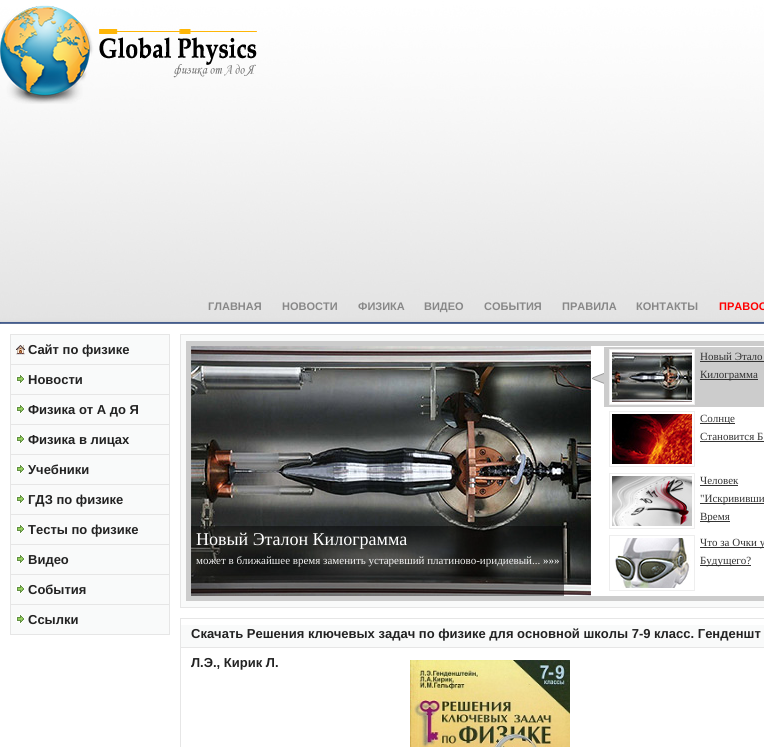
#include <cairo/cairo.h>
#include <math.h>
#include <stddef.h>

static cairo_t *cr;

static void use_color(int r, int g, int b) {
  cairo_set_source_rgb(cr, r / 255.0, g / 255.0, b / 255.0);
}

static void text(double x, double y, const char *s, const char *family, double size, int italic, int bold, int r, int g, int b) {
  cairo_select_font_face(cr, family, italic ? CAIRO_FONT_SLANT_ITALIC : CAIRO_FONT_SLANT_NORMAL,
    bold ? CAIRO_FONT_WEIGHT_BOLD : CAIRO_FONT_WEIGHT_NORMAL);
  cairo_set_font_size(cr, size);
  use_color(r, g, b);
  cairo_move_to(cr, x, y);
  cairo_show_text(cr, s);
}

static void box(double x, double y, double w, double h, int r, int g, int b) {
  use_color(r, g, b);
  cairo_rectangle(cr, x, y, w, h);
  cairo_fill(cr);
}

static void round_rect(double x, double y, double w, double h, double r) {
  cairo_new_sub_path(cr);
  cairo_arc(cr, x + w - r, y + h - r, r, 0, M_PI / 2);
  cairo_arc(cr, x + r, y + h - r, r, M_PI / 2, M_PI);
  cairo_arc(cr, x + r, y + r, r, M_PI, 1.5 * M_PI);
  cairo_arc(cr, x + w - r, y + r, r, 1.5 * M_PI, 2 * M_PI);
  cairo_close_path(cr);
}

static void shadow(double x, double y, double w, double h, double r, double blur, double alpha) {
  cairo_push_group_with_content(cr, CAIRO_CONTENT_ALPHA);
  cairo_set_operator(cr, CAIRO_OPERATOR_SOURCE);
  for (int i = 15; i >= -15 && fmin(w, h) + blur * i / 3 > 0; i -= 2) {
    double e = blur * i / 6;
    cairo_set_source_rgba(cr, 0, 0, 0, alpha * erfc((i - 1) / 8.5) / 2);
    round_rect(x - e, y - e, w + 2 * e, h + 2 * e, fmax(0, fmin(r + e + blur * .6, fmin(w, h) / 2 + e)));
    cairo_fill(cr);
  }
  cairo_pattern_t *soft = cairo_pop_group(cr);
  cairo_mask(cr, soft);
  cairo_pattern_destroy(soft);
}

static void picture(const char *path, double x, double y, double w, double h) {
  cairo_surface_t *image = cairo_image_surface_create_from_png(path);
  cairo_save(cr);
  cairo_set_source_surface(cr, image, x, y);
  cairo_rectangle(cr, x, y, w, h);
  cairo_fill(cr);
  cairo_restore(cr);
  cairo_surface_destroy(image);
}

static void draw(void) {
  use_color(255, 255, 255);
  cairo_paint(cr);
  picture("img_01.png", 0, 0, 764, 322);
  picture("img_02.png", 0, 5, 257, 99);
  box(0, 322, 764, 2, 22, 56, 124);
  use_color(187, 187, 187);
  shadow(0, 324, 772, 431, 0, 2.5, 1);
  box(0, 324, 764, 423, 255, 255, 255);
  box(10, 334, 160, 1, 230, 230, 230);
  box(11, 335, 158, 29, 249, 250, 250);
  picture("img_03.png", 16, 345, 9, 10);
  box(169, 335, 1, 300, 230, 230, 230);
  box(10, 364, 160, 1, 230, 230, 230);
  box(10, 335, 1, 30, 230, 230, 230);
  box(11, 365, 158, 29, 249, 250, 250);
  picture("img_04.png", 16, 374, 9, 10);
  box(10, 394, 160, 1, 230, 230, 230);
  box(10, 365, 1, 30, 230, 230, 230);
  box(11, 395, 158, 29, 249, 250, 250);
  picture("img_04.png", 16, 404, 9, 10);
  box(10, 424, 160, 1, 230, 230, 230);
  box(10, 395, 1, 30, 230, 230, 230);
  box(11, 425, 158, 29, 249, 250, 250);
  picture("img_04.png", 16, 434, 9, 10);
  box(10, 454, 160, 1, 230, 230, 230);
  box(10, 425, 1, 30, 230, 230, 230);
  box(11, 455, 158, 29, 249, 250, 250);
  picture("img_04.png", 16, 464, 9, 10);
  box(10, 484, 160, 1, 230, 230, 230);
  box(10, 455, 1, 30, 230, 230, 230);
  box(11, 485, 158, 29, 249, 250, 250);
  picture("img_04.png", 16, 494, 9, 10);
  box(10, 514, 160, 1, 230, 230, 230);
  box(10, 485, 1, 30, 230, 230, 230);
  box(11, 515, 158, 29, 249, 250, 250);
  picture("img_04.png", 16, 524, 9, 10);
  box(10, 544, 160, 1, 230, 230, 230);
  box(10, 515, 1, 30, 230, 230, 230);
  box(11, 545, 158, 29, 249, 250, 250);
  picture("img_04.png", 16, 554, 9, 10);
  box(10, 574, 160, 1, 230, 230, 230);
  box(10, 545, 1, 30, 230, 230, 230);
  box(11, 575, 158, 29, 249, 250, 250);
  picture("img_04.png", 16, 584, 9, 10);
  box(10, 604, 160, 1, 230, 230, 230);
  box(10, 575, 1, 30, 230, 230, 230);
  box(11, 605, 158, 29, 249, 250, 250);
  picture("img_04.png", 16, 614, 9, 10);
  box(10, 634, 160, 1, 230, 230, 230);
  box(10, 605, 1, 30, 230, 230, 230);
  use_color(249, 250, 250);
  cairo_rectangle(cr, 180.5, 334.5, 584, 273);
  cairo_fill_preserve(cr);
  use_color(230, 230, 230);
  cairo_set_line_width(cr, 1);
  cairo_stroke(cr);
  box(591, 346, 173, 250, 255, 255, 255);
  cairo_rectangle(cr, 188.5, 343.5, 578, 255);
  use_color(204, 204, 204);
  cairo_set_line_width(cr, 5);
  cairo_stroke(cr);
  picture("img_05.png", 191, 346, 400, 250);
  cairo_set_source_rgba(cr, 0, 0, 0, 0.45);
  cairo_rectangle(cr, 191, 526, 373, 70);
  cairo_fill(cr);
  picture("img_06.png", 592, 373, 12, 11);
  box(604, 347, 160, 60, 204, 204, 204);
  use_color(255, 255, 255);
  cairo_rectangle(cr, 609.5, 349.5, 85, 55);
  cairo_fill_preserve(cr);
  use_color(238, 238, 238);
  cairo_set_line_width(cr, 1);
  cairo_stroke(cr);
  picture("img_07.png", 612, 352, 80, 50);
  box(700, 361, 64, 1, 51, 51, 51);
  box(700, 379, 58, 1, 51, 51, 51);
  cairo_rectangle(cr, 609.5, 411.5, 85, 55);
  use_color(238, 238, 238);
  cairo_stroke(cr);
  picture("img_08.png", 612, 414, 80, 50);
  box(700, 423, 35, 1, 51, 51, 51);
  box(700, 441, 64, 1, 51, 51, 51);
  cairo_rectangle(cr, 609.5, 473.5, 85, 55);
  use_color(238, 238, 238);
  cairo_stroke(cr);
  picture("img_09.png", 612, 476, 80, 50);
  box(700, 485, 38, 1, 51, 51, 51);
  box(700, 503, 64, 1, 51, 51, 51);
  box(700, 521, 30, 1, 51, 51, 51);
  cairo_rectangle(cr, 609.5, 535.5, 85, 55);
  use_color(238, 238, 238);
  cairo_stroke(cr);
  picture("img_10.png", 615, 538, 76, 50);
  box(700, 547, 64, 1, 51, 51, 51);
  box(700, 565, 51, 1, 51, 51, 51);
  box(181, 625, 583, 22, 249, 250, 250);
  cairo_rectangle(cr, 180.5, 618.5, 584, 29);
  use_color(230, 230, 230);
  cairo_stroke(cr);
  box(180, 648, 1, 99, 230, 230, 230);
  picture("img_11.png", 410, 660, 160, 87);
  text(208, 310, "ГЛАВНАЯ", "Liberation Sans", 11, 0, 1, 136, 136, 136);
  text(282, 310, "НОВОСТИ", "Liberation Sans", 11, 0, 1, 136, 136, 136);
  text(358, 310, "ФИЗИКА", "Liberation Sans", 11, 0, 1, 136, 136, 136);
  text(424, 310, "ВИДЕО", "Liberation Sans", 11, 0, 1, 136, 136, 136);
  text(484, 310, "СОБЫТИЯ", "Liberation Sans", 11, 0, 1, 136, 136, 136);
  text(562, 310, "ПРАВИЛА", "Liberation Sans", 11, 0, 1, 136, 136, 136);
  text(636, 310, "КОНТАКТЫ", "Liberation Sans", 11, 0, 1, 136, 136, 136);
  text(719, 310, "ПРАВОО", "Liberation Sans", 11, 0, 1, 255, 0, 0);
  text(28, 354, "Сайт по физике", "Liberation Sans", 13, 0, 1, 34, 34, 34);
  text(28, 384, "Новости", "Liberation Sans", 13, 0, 1, 34, 34, 34);
  text(28, 414, "Физика от А до Я", "Liberation Sans", 13, 0, 1, 34, 34, 34);
  text(28, 444, "Физика в лицах", "Liberation Sans", 13, 0, 1, 34, 34, 34);
  text(28, 474, "Учебники", "Liberation Sans", 13, 0, 1, 34, 34, 34);
  text(28, 504, "ГДЗ по физике", "Liberation Sans", 13, 0, 1, 34, 34, 34);
  text(28, 534, "Тесты по физике", "Liberation Sans", 13, 0, 1, 34, 34, 34);
  text(28, 564, "Видео", "Liberation Sans", 13, 0, 1, 34, 34, 34);
  text(28, 594, "События", "Liberation Sans", 13, 0, 1, 34, 34, 34);
  text(28, 624, "Ссылки", "Liberation Sans", 13, 0, 1, 34, 34, 34);
  text(196, 545, "Новый Эталон Килограмма", "Liberation Serif", 18, 0, 0, 255, 255, 255);
  text(196, 564, "может в ближайшее время заменить устаревший платиново-иридиевый...", "Liberation Serif", 11, 0, 0, 240, 240, 240);
  text(543, 564, "»»»", "Liberation Serif", 11, 0, 0, 255, 255, 255);
  text(700, 360, "Новый Этало", "Liberation Serif", 11, 0, 0, 51, 51, 51);
  text(700, 378, "Килограмма", "Liberation Serif", 11, 0, 0, 51, 51, 51);
  text(700, 422, "Солнце", "Liberation Serif", 11, 0, 0, 51, 51, 51);
  text(700, 440, "Становится Б", "Liberation Serif", 11, 0, 0, 51, 51, 51);
  text(700, 484, "Человек", "Liberation Serif", 11, 0, 0, 51, 51, 51);
  text(700, 502, "\"Искрививши", "Liberation Serif", 11, 0, 0, 51, 51, 51);
  text(700, 520, "Время", "Liberation Serif", 11, 0, 0, 51, 51, 51);
  text(700, 546, "Что за Очки у", "Liberation Serif", 11, 0, 0, 51, 51, 51);
  text(700, 564, "Будущего?", "Liberation Serif", 11, 0, 0, 51, 51, 51);
  text(191, 638, "Скачать Решения ключевых задач по физике для основной школы 7-9 класс. Генденшт", "Liberation Sans", 13, 0, 1, 34, 34, 34);
  text(191, 667, "Л.Э., Кирик Л.", "Liberation Sans", 13, 0, 1, 34, 34, 34);
}

int main(void) {
  cairo_surface_t *surface = cairo_image_surface_create(CAIRO_FORMAT_RGB24, 764, 747);
  cr = cairo_create(surface);
  cairo_font_options_t *options = cairo_font_options_create();
  cairo_font_options_set_hint_metrics(options, CAIRO_HINT_METRICS_OFF);
  cairo_font_options_set_hint_style(options, CAIRO_HINT_STYLE_NONE);
  cairo_set_font_options(cr, options);
  cairo_set_miter_limit(cr, 4);
  draw();
  cairo_surface_write_to_png(surface, "out.png");
  cairo_font_options_destroy(options);
  cairo_destroy(cr);
  cairo_surface_destroy(surface);
  return 0;
}
